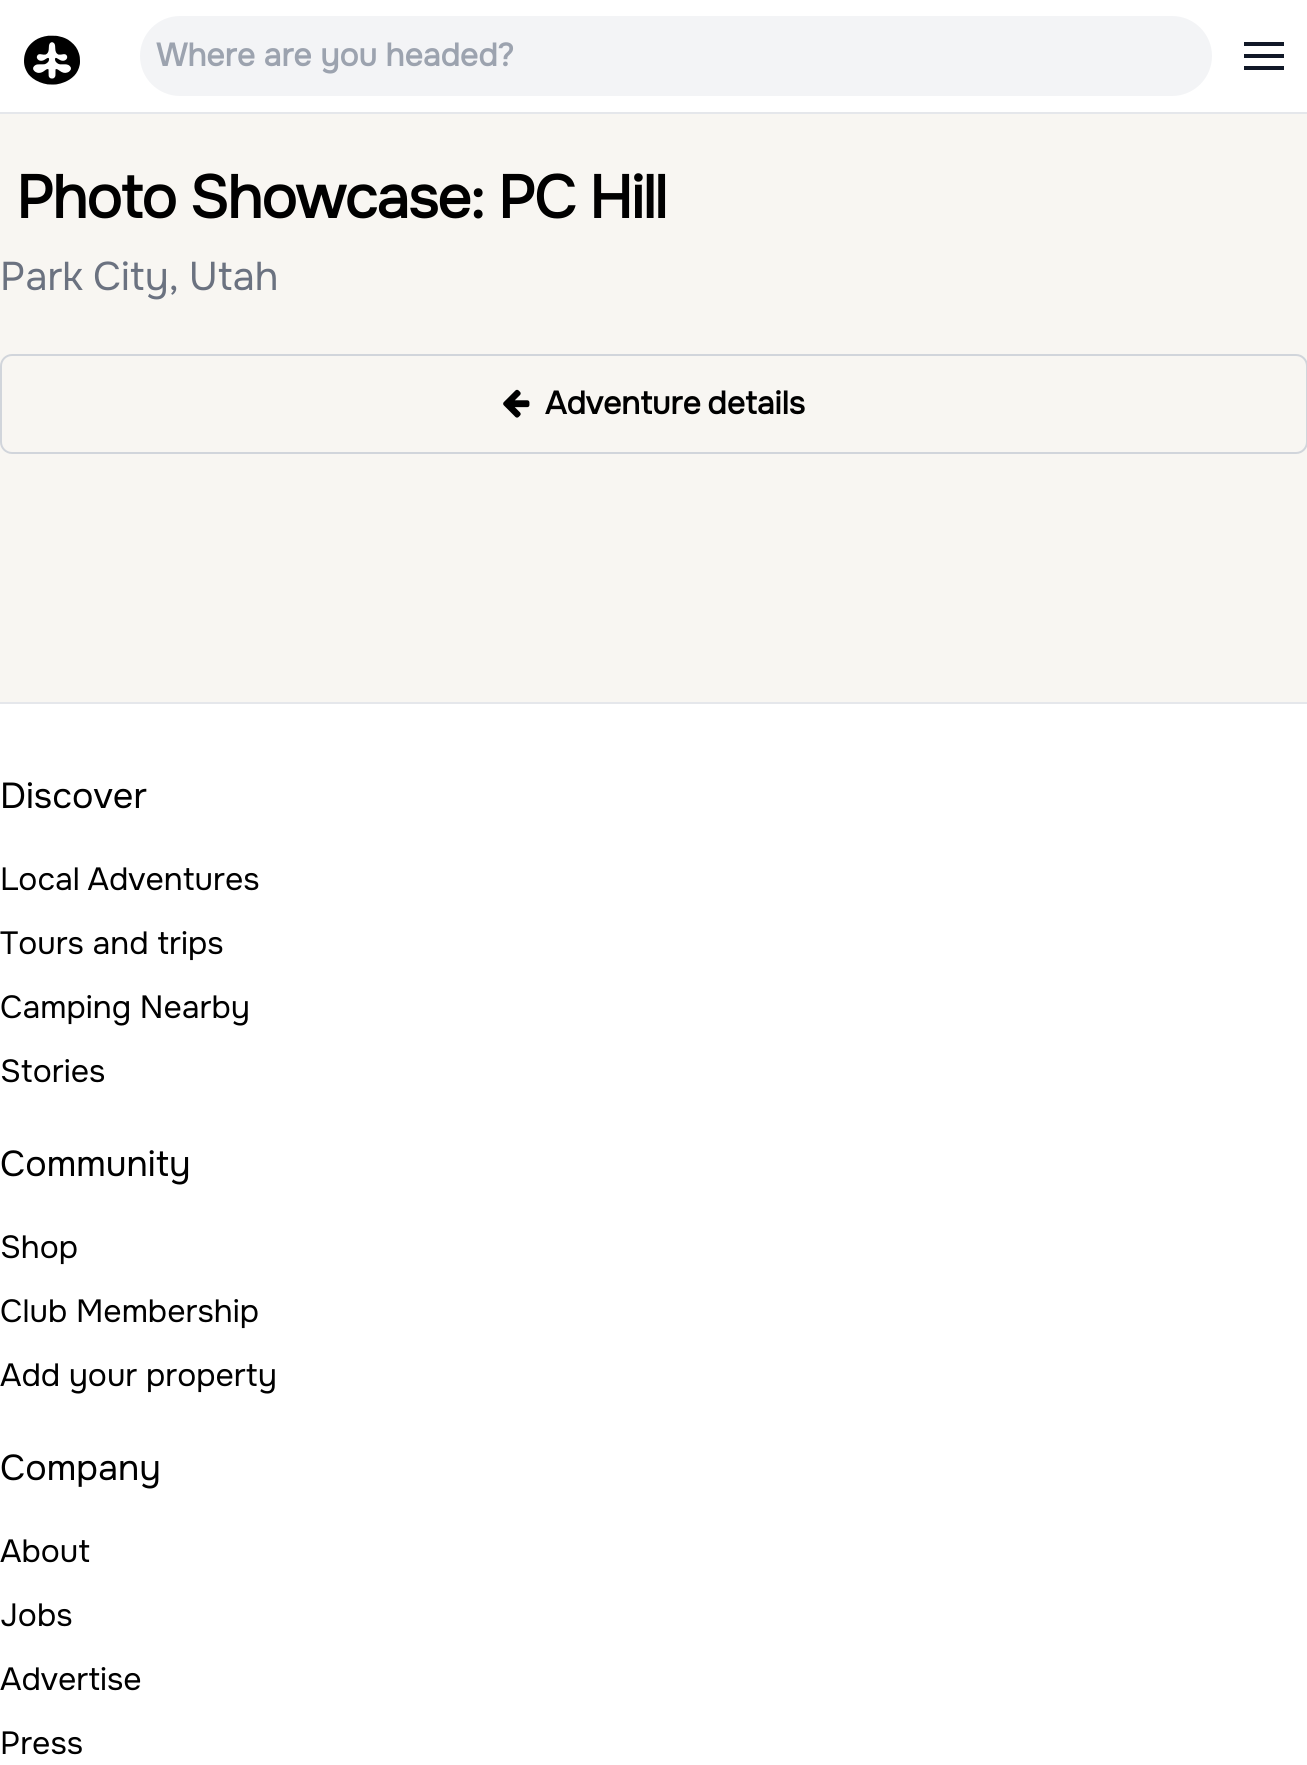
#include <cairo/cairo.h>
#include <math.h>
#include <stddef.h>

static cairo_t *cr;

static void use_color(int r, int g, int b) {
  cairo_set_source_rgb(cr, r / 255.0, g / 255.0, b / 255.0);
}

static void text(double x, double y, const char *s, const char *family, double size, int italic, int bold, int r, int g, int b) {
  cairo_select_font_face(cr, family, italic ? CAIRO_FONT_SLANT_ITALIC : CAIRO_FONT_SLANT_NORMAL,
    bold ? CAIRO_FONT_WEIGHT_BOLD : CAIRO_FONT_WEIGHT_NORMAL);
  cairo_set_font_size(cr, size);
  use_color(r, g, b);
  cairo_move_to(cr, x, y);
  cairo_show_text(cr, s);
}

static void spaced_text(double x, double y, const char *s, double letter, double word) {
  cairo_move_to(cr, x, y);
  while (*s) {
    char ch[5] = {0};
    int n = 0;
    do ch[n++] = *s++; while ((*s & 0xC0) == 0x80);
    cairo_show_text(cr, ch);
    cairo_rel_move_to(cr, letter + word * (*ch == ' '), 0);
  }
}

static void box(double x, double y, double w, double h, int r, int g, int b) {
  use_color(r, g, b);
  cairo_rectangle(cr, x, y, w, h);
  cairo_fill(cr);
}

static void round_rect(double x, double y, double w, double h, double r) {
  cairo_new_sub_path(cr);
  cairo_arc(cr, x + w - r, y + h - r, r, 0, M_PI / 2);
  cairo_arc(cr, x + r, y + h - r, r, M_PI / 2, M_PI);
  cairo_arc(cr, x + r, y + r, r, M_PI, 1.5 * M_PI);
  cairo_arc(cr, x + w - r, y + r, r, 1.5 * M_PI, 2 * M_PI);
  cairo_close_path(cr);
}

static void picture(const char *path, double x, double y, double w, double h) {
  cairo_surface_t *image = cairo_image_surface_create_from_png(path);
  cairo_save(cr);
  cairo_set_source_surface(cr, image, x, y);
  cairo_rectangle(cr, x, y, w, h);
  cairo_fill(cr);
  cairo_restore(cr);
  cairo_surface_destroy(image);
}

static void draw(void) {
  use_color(248, 246, 242);
  cairo_paint(cr);
  box(0, 0, 1307, 112, 255, 255, 255);
  box(0, 112, 1307, 2, 229, 231, 235);
  picture("img_01.png", 24, 35, 56, 50);
  use_color(243, 244, 246);
  round_rect(140, 16, 1072, 80, 40);
  cairo_fill(cr);
  use_color(17, 24, 39);
  cairo_new_path(cr);
  cairo_move_to(cr, 1244, 42);
  cairo_line_to(cr, 1284, 42);
  cairo_line_to(cr, 1284, 46);
  cairo_line_to(cr, 1244, 46);
  cairo_close_path(cr);
  cairo_move_to(cr, 1244, 54);
  cairo_line_to(cr, 1284, 54);
  cairo_line_to(cr, 1284, 58);
  cairo_line_to(cr, 1244, 58);
  cairo_close_path(cr);
  cairo_move_to(cr, 1244, 66);
  cairo_line_to(cr, 1284, 66);
  cairo_line_to(cr, 1284, 70);
  cairo_line_to(cr, 1244, 70);
  cairo_close_path(cr);
  cairo_fill(cr);
  round_rect(1, 355, 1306, 98, 11);
  use_color(209, 213, 219);
  cairo_stroke(cr);
  picture("img_02.png", 503, 389, 27, 29);
  box(0, 704, 1307, 1061, 255, 255, 255);
  box(0, 702, 1307, 2, 229, 231, 235);
  text(156, 66, "Where are you headed?", "Onest", 32, 0, 1, 156, 163, 175);
  cairo_set_font_size(cr, 60);
  use_color(0, 0, 0);
  spaced_text(16, 218, "Photo Showcase: PC Hill", -1.5, -0.5);
  cairo_select_font_face(cr, "Onest", CAIRO_FONT_SLANT_NORMAL, CAIRO_FONT_WEIGHT_NORMAL);
  cairo_set_font_size(cr, 40);
  use_color(107, 114, 128);
  spaced_text(0, 290, "Park City, Utah", 0, -1);
  cairo_select_font_face(cr, "Onest", CAIRO_FONT_SLANT_NORMAL, CAIRO_FONT_WEIGHT_BOLD);
  cairo_set_font_size(cr, 32);
  use_color(0, 0, 0);
  spaced_text(545, 414, "Adventure details", 0, -2);
  text(0, 808, "Discover", "Onest", 36, 0, 0, 0, 0, 0);
  cairo_set_font_size(cr, 32);
  spaced_text(0, 890, "Local Adventures", 0, -1);
  text(0, 954, "Tours and trips", "Onest", 32, 0, 0, 0, 0, 0);
  text(0, 1018, "Camping Nearby", "Onest", 32, 0, 0, 0, 0, 0);
  text(0, 1082, "Stories", "Onest", 32, 0, 0, 0, 0, 0);
  text(0, 1176, "Community", "Onest", 36, 0, 0, 0, 0, 0);
  text(0, 1258, "Shop", "Onest", 32, 0, 0, 0, 0, 0);
  text(0, 1322, "Club Membership", "Onest", 32, 0, 0, 0, 0, 0);
  text(0, 1386, "Add your property", "Onest", 32, 0, 0, 0, 0, 0);
  text(0, 1480, "Company", "Onest", 36, 0, 0, 0, 0, 0);
  text(0, 1562, "About", "Onest", 32, 0, 0, 0, 0, 0);
  text(0, 1626, "Jobs", "Onest", 32, 0, 0, 0, 0, 0);
  text(0, 1690, "Advertise", "Onest", 32, 0, 0, 0, 0, 0);
  text(0, 1754, "Press", "Onest", 32, 0, 0, 0, 0, 0);
}

int main(void) {
  cairo_surface_t *surface = cairo_image_surface_create(CAIRO_FORMAT_RGB24, 1307, 1765);
  cr = cairo_create(surface);
  cairo_font_options_t *options = cairo_font_options_create();
  cairo_font_options_set_hint_metrics(options, CAIRO_HINT_METRICS_OFF);
  cairo_font_options_set_hint_style(options, CAIRO_HINT_STYLE_NONE);
  cairo_set_font_options(cr, options);
  cairo_set_miter_limit(cr, 4);
  draw();
  cairo_surface_write_to_png(surface, "out.png");
  cairo_font_options_destroy(options);
  cairo_destroy(cr);
  cairo_surface_destroy(surface);
  return 0;
}
